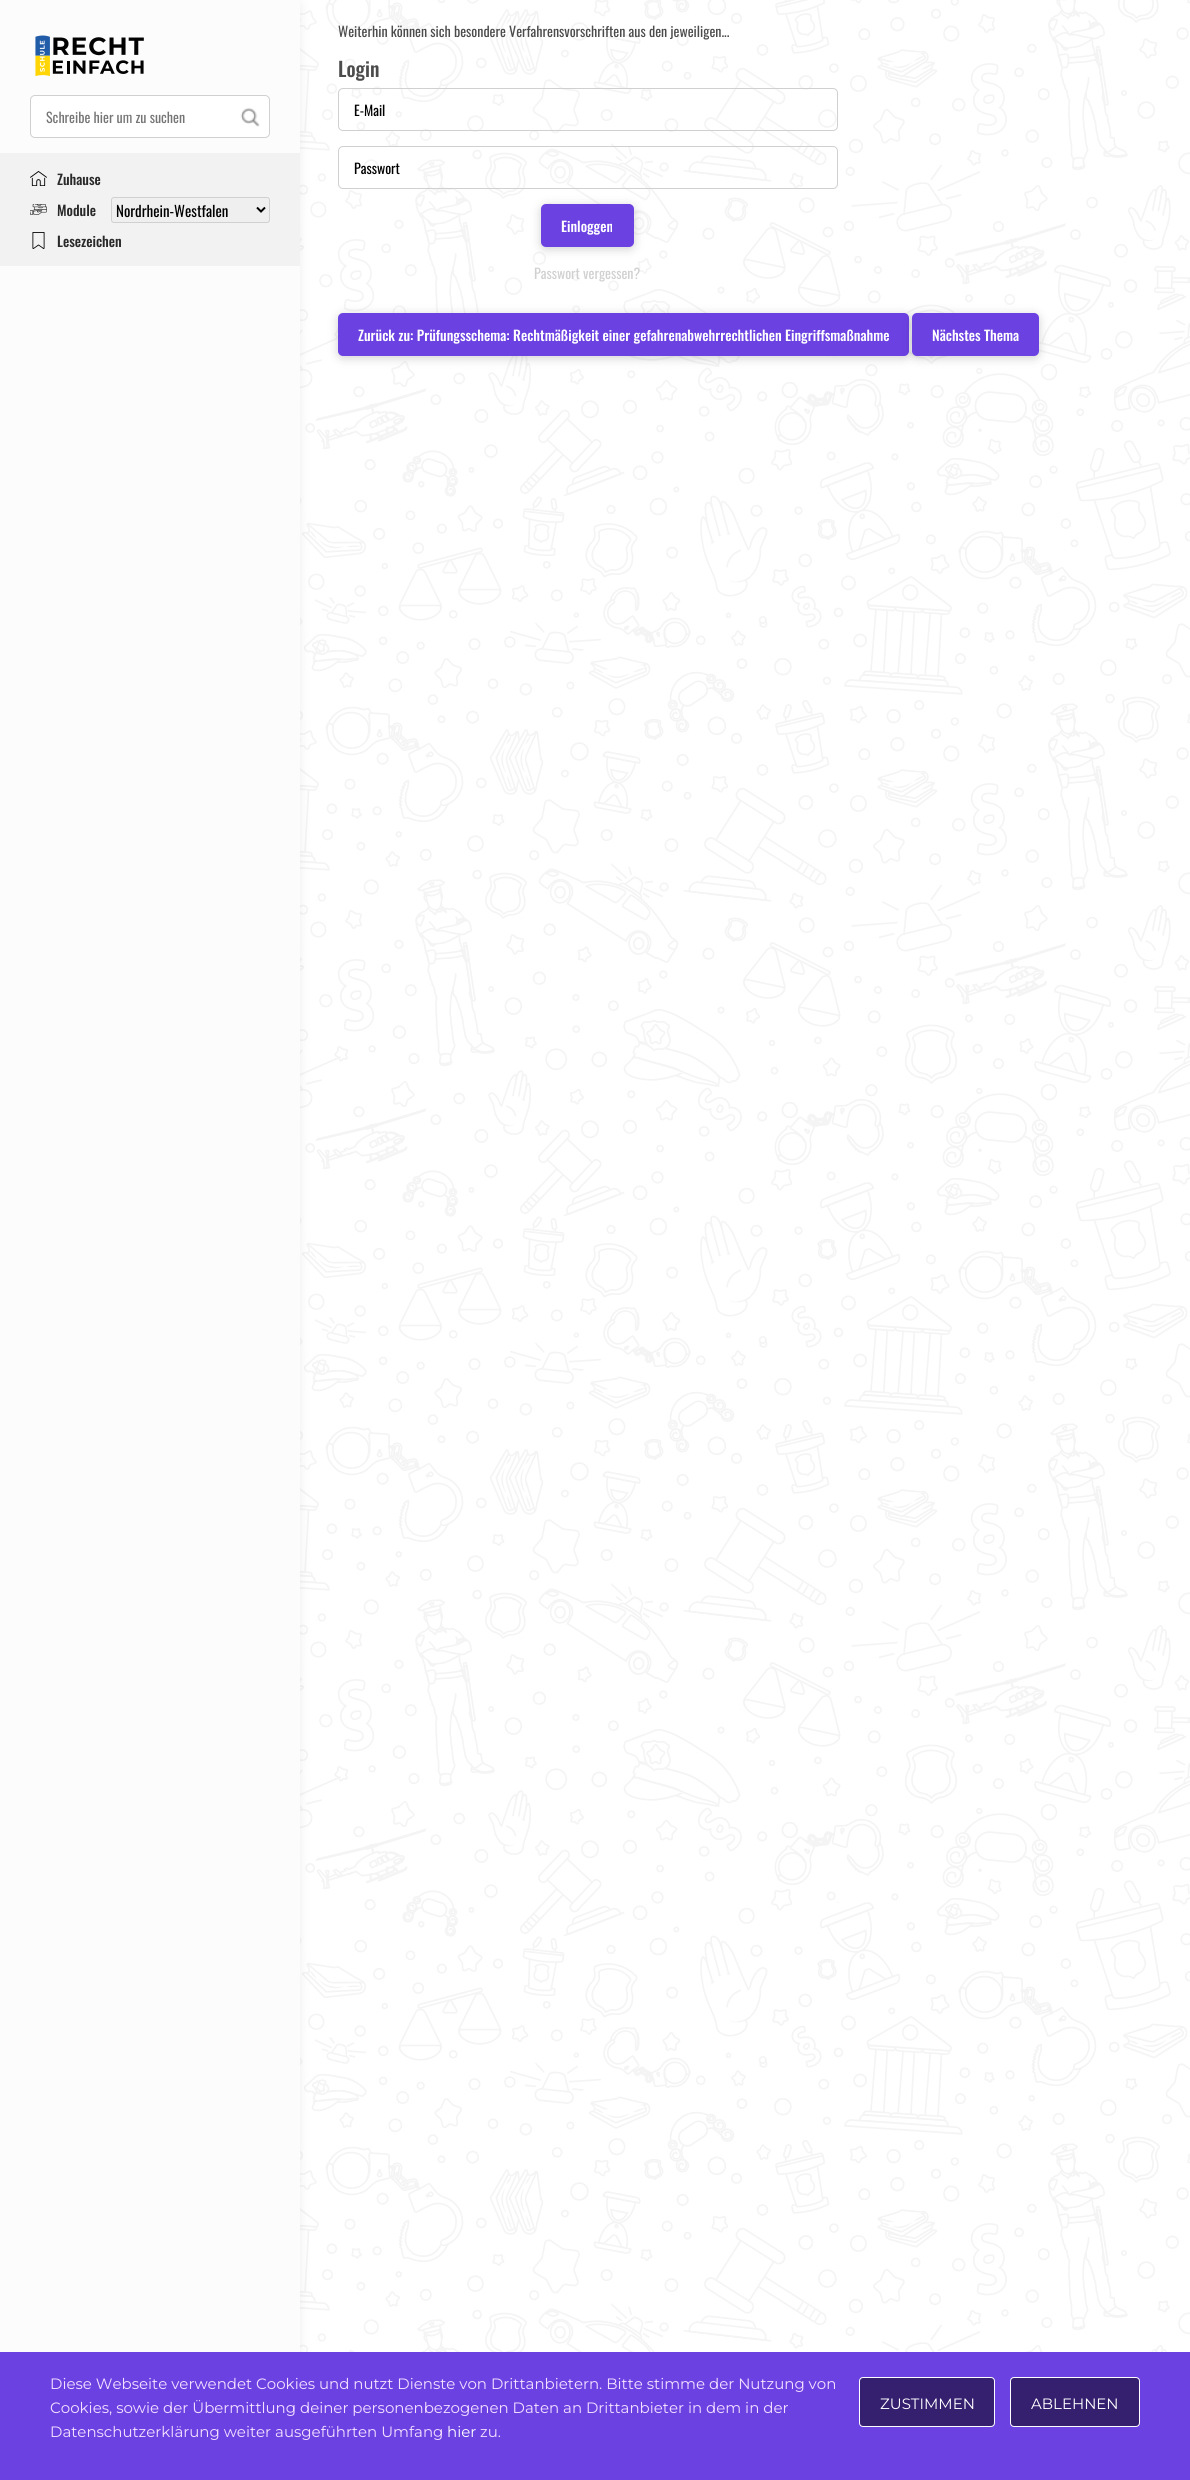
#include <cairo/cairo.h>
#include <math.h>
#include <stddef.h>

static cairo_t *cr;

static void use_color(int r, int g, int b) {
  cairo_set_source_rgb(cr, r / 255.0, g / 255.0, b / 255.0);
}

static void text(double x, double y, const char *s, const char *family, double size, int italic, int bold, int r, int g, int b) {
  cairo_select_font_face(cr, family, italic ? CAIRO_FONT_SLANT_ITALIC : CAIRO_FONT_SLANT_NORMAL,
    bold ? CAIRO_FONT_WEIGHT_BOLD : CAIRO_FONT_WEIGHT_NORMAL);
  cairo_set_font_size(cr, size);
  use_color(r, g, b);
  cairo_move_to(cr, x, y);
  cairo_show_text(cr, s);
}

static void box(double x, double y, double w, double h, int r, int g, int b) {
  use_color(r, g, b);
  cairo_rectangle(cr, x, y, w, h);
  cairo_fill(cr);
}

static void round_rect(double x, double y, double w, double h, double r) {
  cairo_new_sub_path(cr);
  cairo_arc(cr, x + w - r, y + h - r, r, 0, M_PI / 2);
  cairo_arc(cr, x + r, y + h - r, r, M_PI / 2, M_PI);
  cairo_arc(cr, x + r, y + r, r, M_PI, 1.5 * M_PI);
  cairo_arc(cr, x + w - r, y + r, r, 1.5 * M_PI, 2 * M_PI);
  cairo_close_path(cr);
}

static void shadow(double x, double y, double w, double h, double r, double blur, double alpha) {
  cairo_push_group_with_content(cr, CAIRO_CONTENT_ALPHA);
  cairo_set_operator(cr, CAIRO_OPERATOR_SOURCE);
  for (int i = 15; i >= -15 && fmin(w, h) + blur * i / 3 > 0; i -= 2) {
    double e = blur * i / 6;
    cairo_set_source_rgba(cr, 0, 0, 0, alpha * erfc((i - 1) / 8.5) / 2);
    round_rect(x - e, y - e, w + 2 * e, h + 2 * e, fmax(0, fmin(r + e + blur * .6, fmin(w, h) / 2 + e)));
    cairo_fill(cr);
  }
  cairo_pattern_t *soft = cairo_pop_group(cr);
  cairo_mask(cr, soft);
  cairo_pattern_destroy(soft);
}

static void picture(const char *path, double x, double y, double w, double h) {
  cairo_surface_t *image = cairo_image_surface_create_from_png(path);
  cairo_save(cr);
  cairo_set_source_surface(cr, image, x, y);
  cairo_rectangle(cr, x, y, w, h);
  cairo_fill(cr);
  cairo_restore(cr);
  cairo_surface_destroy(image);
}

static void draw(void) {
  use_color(255, 255, 255);
  cairo_paint(cr);
  picture("img_01.png", 300, 0, 890, 2352);
  use_color(0, 0, 0);
  shadow(6, 6, 288, 2468, 0, 7.5, 0.18);
  box(0, 0, 300, 2352, 252, 252, 252);
  picture("img_02.png", 35, 35, 109, 41);
  use_color(255, 255, 255);
  round_rect(30.5, 95.5, 239, 42, 4.5);
  cairo_fill_preserve(cr);
  use_color(208, 208, 208);
  cairo_set_line_width(cr, 1);
  cairo_stroke(cr);
  picture("img_03.png", 240, 107, 20, 20);
  box(0, 153, 300, 113, 242, 242, 242);
  picture("img_04.png", 30, 171, 17, 15);
  picture("img_05.png", 30, 204, 17, 11);
  use_color(239, 239, 239);
  round_rect(111.5, 197.5, 158, 25, 2.5);
  cairo_fill_preserve(cr);
  use_color(208, 208, 208);
  cairo_stroke(cr);
  cairo_new_path(cr);
  cairo_move_to(cr, 257, 207.5);
  cairo_line_to(cr, 261, 211.5);
  cairo_line_to(cr, 265, 207.5);
  use_color(0, 0, 0);
  cairo_set_line_width(cr, 2);
  cairo_stroke(cr);
  picture("img_06.png", 32, 232, 13, 17);
  round_rect(338.5, 88.5, 499, 42, 4.5);
  use_color(208, 208, 208);
  cairo_set_line_width(cr, 1);
  cairo_stroke(cr);
  round_rect(338.5, 146.5, 499, 42, 4.5);
  cairo_stroke(cr);
  use_color(0, 0, 0);
  shadow(542, 207, 91, 41, 4, 5.5, 0.22);
  use_color(108, 65, 226);
  round_rect(541, 204, 93, 43, 5);
  cairo_fill(cr);
  use_color(0, 0, 0);
  shadow(339, 316, 569, 41, 4, 5.5, 0.22);
  use_color(108, 65, 226);
  round_rect(338, 313, 571, 43, 5);
  cairo_fill(cr);
  use_color(0, 0, 0);
  shadow(913, 316, 125, 41, 4, 5.5, 0.22);
  use_color(108, 65, 226);
  round_rect(912, 313, 127, 43, 5);
  cairo_fill(cr);
  box(0, 2352, 1190, 128, 108, 65, 226);
  use_color(53, 31, 111);
  round_rect(859.5, 2377.5, 135, 49, 3.5);
  cairo_fill_preserve(cr);
  use_color(255, 255, 255);
  cairo_stroke(cr);
  use_color(53, 31, 111);
  round_rect(1010.5, 2377.5, 129, 49, 3.5);
  cairo_fill_preserve(cr);
  use_color(255, 255, 255);
  cairo_stroke(cr);
  text(46, 123, "Schreibe hier um zu suchen", "Oswald", 14, 0, 0, 117, 117, 117);
  text(57, 185, "Zuhause", "Oswald Medium", 14, 0, 0, 41, 41, 41);
  text(57, 216, "Module", "Oswald Medium", 14, 0, 0, 41, 41, 41);
  text(116, 217, "Nordrhein-Westfalen", "Oswald", 15, 0, 0, 0, 0, 0);
  text(57, 247, "Lesezeichen", "Oswald Medium", 14, 0, 0, 41, 41, 41);
  text(338, 37, "Weiterhin können sich besondere Verfahrensvorschriften aus den jeweiligen...", "Oswald", 14, 0, 0, 76, 76, 76);
  text(338, 77, "Login", "Oswald Medium", 20, 0, 0, 76, 76, 76);
  text(354, 116, "E-Mail", "Oswald", 14, 0, 0, 0, 0, 0);
  text(354, 174, "Passwort", "Oswald", 14, 0, 0, 0, 0, 0);
  text(561, 232, "Einloggen", "Oswald Medium", 14, 0, 0, 255, 255, 255);
  text(534, 279, "Passwort vergessen?", "Oswald", 14, 0, 0, 208, 208, 208);
  text(358, 341, "Zurück zu: Prüfungsschema: Rechtmäßigkeit einer gefahrenabwehrrechtlichen Eingriffsmaßnahme", "Oswald Medium", 14, 0, 0, 255, 255, 255);
  text(932, 341, "Nächstes Thema", "Oswald Medium", 14, 0, 0, 255, 255, 255);
  text(50, 2389, "Diese Webseite verwendet Cookies und nutzt Dienste von Drittanbietern. Bitte stimme der Nutzung von", "Montserrat", 15, 0, 0, 243, 224, 255);
  text(50, 2413, "Cookies, sowie der Übermittlung deiner personenbezogenen Daten an Drittanbieter in dem in der", "Montserrat", 15, 0, 0, 243, 224, 255);
  text(50, 2437, "Datenschutzerklärung weiter ausgeführten Umfang", "Montserrat", 15, 0, 0, 243, 224, 255);
  text(447, 2437, "hier", "Montserrat", 15, 0, 0, 255, 255, 255);
  text(480, 2437, "zu.", "Montserrat", 15, 0, 0, 243, 224, 255);
  text(880, 2409, "ZUSTIMMEN", "Montserrat", 15, 0, 0, 255, 255, 255);
  text(1031, 2409, "ABLEHNEN", "Montserrat", 15, 0, 0, 255, 255, 255);
}

int main(void) {
  cairo_surface_t *surface = cairo_image_surface_create(CAIRO_FORMAT_RGB24, 1190, 2480);
  cr = cairo_create(surface);
  cairo_font_options_t *options = cairo_font_options_create();
  cairo_font_options_set_hint_metrics(options, CAIRO_HINT_METRICS_OFF);
  cairo_font_options_set_hint_style(options, CAIRO_HINT_STYLE_NONE);
  cairo_set_font_options(cr, options);
  cairo_set_miter_limit(cr, 4);
  draw();
  cairo_surface_write_to_png(surface, "out.png");
  cairo_font_options_destroy(options);
  cairo_destroy(cr);
  cairo_surface_destroy(surface);
  return 0;
}
